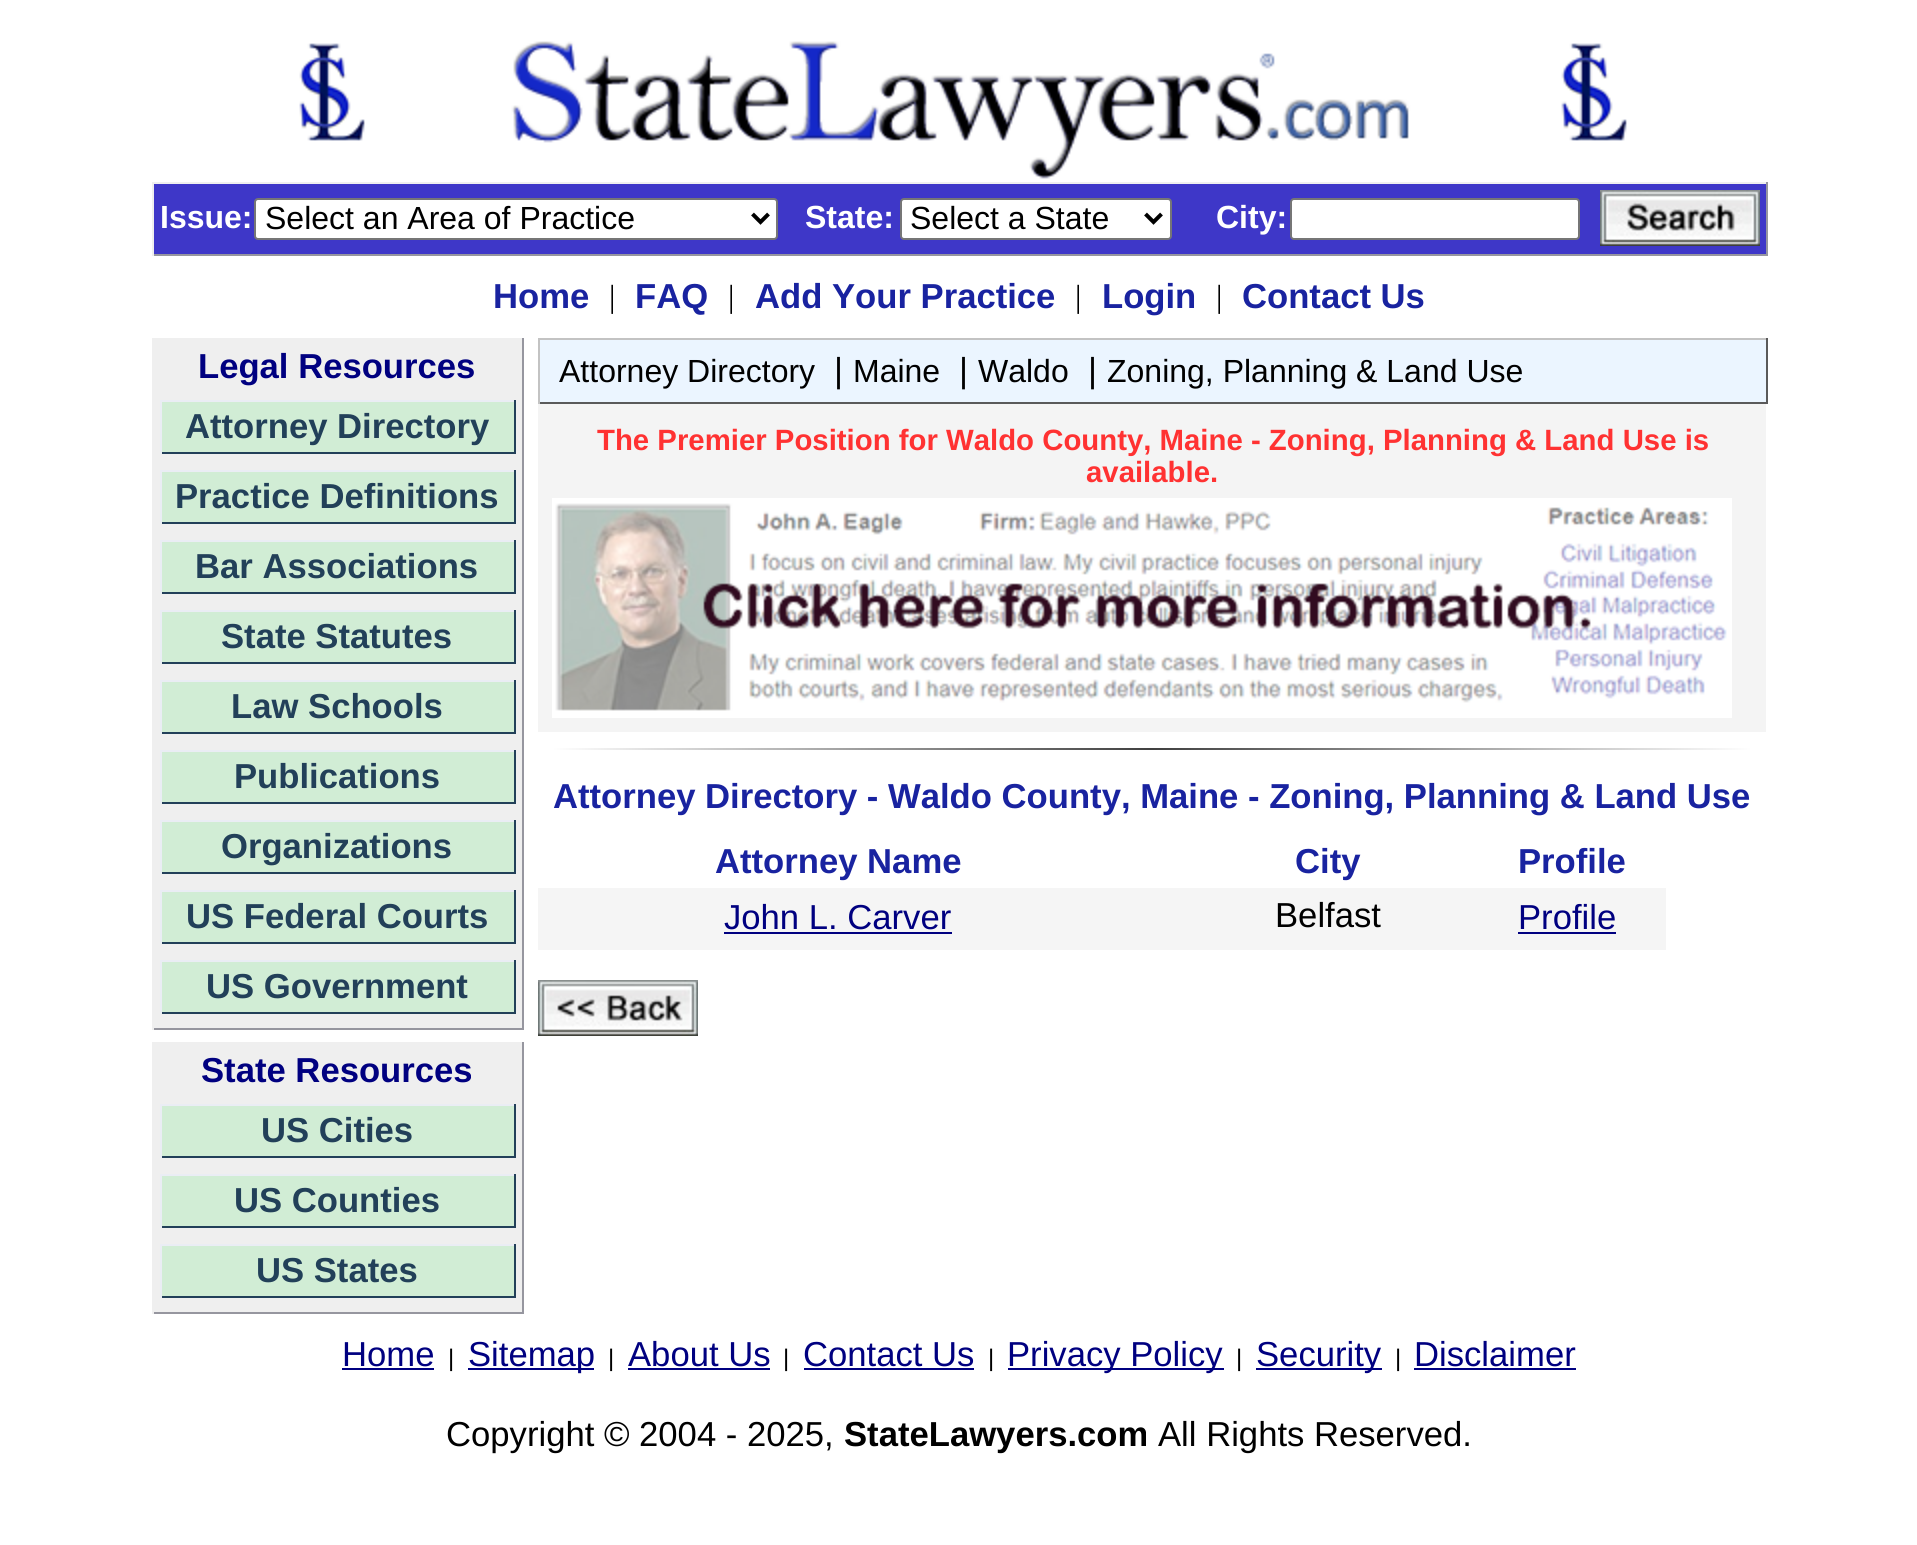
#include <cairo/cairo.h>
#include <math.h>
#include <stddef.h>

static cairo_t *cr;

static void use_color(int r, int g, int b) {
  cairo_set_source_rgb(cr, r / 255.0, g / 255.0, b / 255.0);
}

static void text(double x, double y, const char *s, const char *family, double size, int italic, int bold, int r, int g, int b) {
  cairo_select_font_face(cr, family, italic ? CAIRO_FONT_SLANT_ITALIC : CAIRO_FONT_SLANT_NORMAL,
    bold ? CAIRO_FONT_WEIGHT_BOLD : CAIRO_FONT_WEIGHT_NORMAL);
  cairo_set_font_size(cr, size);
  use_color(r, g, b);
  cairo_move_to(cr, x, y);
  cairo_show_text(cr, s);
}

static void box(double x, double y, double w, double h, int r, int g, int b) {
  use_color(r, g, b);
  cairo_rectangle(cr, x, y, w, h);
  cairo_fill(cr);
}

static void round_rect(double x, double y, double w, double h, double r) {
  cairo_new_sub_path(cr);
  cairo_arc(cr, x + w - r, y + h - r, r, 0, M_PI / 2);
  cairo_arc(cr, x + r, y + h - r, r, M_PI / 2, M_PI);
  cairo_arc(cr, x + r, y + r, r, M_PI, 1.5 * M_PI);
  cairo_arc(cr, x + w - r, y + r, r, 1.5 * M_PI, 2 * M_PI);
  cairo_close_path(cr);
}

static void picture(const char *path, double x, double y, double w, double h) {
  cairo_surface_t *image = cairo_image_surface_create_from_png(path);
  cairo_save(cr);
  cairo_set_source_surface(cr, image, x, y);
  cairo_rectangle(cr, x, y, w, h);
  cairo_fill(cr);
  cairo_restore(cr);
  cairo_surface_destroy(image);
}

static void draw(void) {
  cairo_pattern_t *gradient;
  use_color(255, 255, 255);
  cairo_paint(cr);
  picture("img_01.png", 299, 41, 1328, 138);
  box(154, 184, 1612, 70, 62, 55, 200);
  box(152, 182, 1616, 2, 239, 239, 239);
  box(1766, 182, 2, 74, 150, 150, 159);
  box(152, 254, 1616, 2, 150, 150, 159);
  box(152, 182, 2, 74, 239, 239, 239);
  use_color(255, 255, 255);
  round_rect(255, 199, 522, 40, 3);
  cairo_fill_preserve(cr);
  use_color(118, 118, 118);
  cairo_stroke(cr);
  cairo_new_path(cr);
  cairo_move_to(cr, 752.5, 214);
  cairo_line_to(cr, 760.5, 222);
  cairo_line_to(cr, 768.5, 214);
  use_color(0, 0, 0);
  cairo_set_line_width(cr, 4);
  cairo_stroke(cr);
  use_color(255, 255, 255);
  round_rect(901, 199, 270, 40, 3);
  cairo_fill_preserve(cr);
  use_color(118, 118, 118);
  cairo_set_line_width(cr, 2);
  cairo_stroke(cr);
  cairo_new_path(cr);
  cairo_move_to(cr, 1145.5, 214);
  cairo_line_to(cr, 1153.5, 222);
  cairo_line_to(cr, 1161.5, 214);
  use_color(0, 0, 0);
  cairo_set_line_width(cr, 4);
  cairo_stroke(cr);
  use_color(255, 255, 255);
  round_rect(1291, 199, 288, 40, 3);
  cairo_fill_preserve(cr);
  use_color(118, 118, 118);
  cairo_set_line_width(cr, 2);
  cairo_stroke(cr);
  picture("img_02.png", 1600, 190, 160, 56);
  box(154, 338, 368, 690, 239, 239, 239);
  box(522, 338, 2, 692, 150, 150, 159);
  box(152, 1028, 372, 2, 150, 150, 159);
  box(152, 338, 2, 692, 239, 239, 239);
  box(162, 402, 352, 50, 209, 237, 213);
  box(160, 400, 356, 2, 234, 237, 244);
  box(514, 400, 2, 54, 34, 64, 89);
  box(160, 452, 356, 2, 34, 64, 89);
  box(160, 400, 2, 54, 234, 237, 244);
  box(162, 472, 352, 50, 209, 237, 213);
  box(160, 470, 356, 2, 234, 237, 244);
  box(514, 470, 2, 54, 34, 64, 89);
  box(160, 522, 356, 2, 34, 64, 89);
  box(160, 470, 2, 54, 234, 237, 244);
  box(162, 542, 352, 50, 209, 237, 213);
  box(160, 540, 356, 2, 234, 237, 244);
  box(514, 540, 2, 54, 34, 64, 89);
  box(160, 592, 356, 2, 34, 64, 89);
  box(160, 540, 2, 54, 234, 237, 244);
  box(162, 612, 352, 50, 209, 237, 213);
  box(160, 610, 356, 2, 234, 237, 244);
  box(514, 610, 2, 54, 34, 64, 89);
  box(160, 662, 356, 2, 34, 64, 89);
  box(160, 610, 2, 54, 234, 237, 244);
  box(162, 682, 352, 50, 209, 237, 213);
  box(160, 680, 356, 2, 234, 237, 244);
  box(514, 680, 2, 54, 34, 64, 89);
  box(160, 732, 356, 2, 34, 64, 89);
  box(160, 680, 2, 54, 234, 237, 244);
  box(162, 752, 352, 50, 209, 237, 213);
  box(160, 750, 356, 2, 234, 237, 244);
  box(514, 750, 2, 54, 34, 64, 89);
  box(160, 802, 356, 2, 34, 64, 89);
  box(160, 750, 2, 54, 234, 237, 244);
  box(162, 822, 352, 50, 209, 237, 213);
  box(160, 820, 356, 2, 234, 237, 244);
  box(514, 820, 2, 54, 34, 64, 89);
  box(160, 872, 356, 2, 34, 64, 89);
  box(160, 820, 2, 54, 234, 237, 244);
  box(162, 892, 352, 50, 209, 237, 213);
  box(160, 890, 356, 2, 234, 237, 244);
  box(514, 890, 2, 54, 34, 64, 89);
  box(160, 942, 356, 2, 34, 64, 89);
  box(160, 890, 2, 54, 234, 237, 244);
  box(162, 962, 352, 50, 209, 237, 213);
  box(160, 960, 356, 2, 234, 237, 244);
  box(514, 960, 2, 54, 34, 64, 89);
  box(160, 1012, 356, 2, 34, 64, 89);
  box(160, 960, 2, 54, 234, 237, 244);
  box(154, 1042, 368, 270, 239, 239, 239);
  box(522, 1042, 2, 272, 150, 150, 159);
  box(152, 1312, 372, 2, 150, 150, 159);
  box(152, 1042, 2, 272, 239, 239, 239);
  box(162, 1106, 352, 50, 209, 237, 213);
  box(160, 1104, 356, 2, 234, 237, 244);
  box(514, 1104, 2, 54, 34, 64, 89);
  box(160, 1156, 356, 2, 34, 64, 89);
  box(160, 1104, 2, 54, 234, 237, 244);
  box(162, 1176, 352, 50, 209, 237, 213);
  box(160, 1174, 356, 2, 234, 237, 244);
  box(514, 1174, 2, 54, 34, 64, 89);
  box(160, 1226, 356, 2, 34, 64, 89);
  box(160, 1174, 2, 54, 234, 237, 244);
  box(162, 1246, 352, 50, 209, 237, 213);
  box(160, 1244, 356, 2, 234, 237, 244);
  box(514, 1244, 2, 54, 34, 64, 89);
  box(160, 1296, 356, 2, 34, 64, 89);
  box(160, 1244, 2, 54, 234, 237, 244);
  box(540, 340, 1226, 62, 235, 245, 255);
  box(538, 338, 1230, 2, 195, 195, 195);
  box(1766, 338, 2, 66, 90, 90, 90);
  box(538, 402, 1230, 2, 90, 90, 90);
  box(538, 338, 2, 66, 195, 195, 195);
  box(538, 404, 1228, 328, 244, 244, 244);
  picture("img_03.png", 552, 498, 1180, 220);
  gradient = cairo_pattern_create_linear(552, 749, 1752, 749);
  cairo_pattern_add_color_stop_rgba(gradient, 0, 1, 1, 1, 1);
  cairo_pattern_add_color_stop_rgba(gradient, 0.5, 0.251, 0.251, 0.251, 1);
  cairo_pattern_add_color_stop_rgba(gradient, 1, 1, 1, 1, 1);
  cairo_set_source(cr, gradient);
  cairo_pattern_destroy(gradient);
  cairo_rectangle(cr, 552, 748, 1200, 2);
  cairo_fill(cr);
  box(538, 888, 1128, 62, 245, 245, 245);
  box(724, 932, 228, 2, 0, 0, 128);
  box(1518, 932, 98, 2, 0, 0, 128);
  picture("img_04.png", 538, 980, 160, 56);
  box(342, 1368, 92, 2, 0, 0, 128);
  box(468, 1368, 126, 2, 0, 0, 128);
  box(628, 1368, 142, 2, 0, 0, 128);
  box(804, 1368, 170, 2, 0, 0, 128);
  box(1008, 1368, 216, 2, 0, 0, 128);
  box(1256, 1368, 126, 2, 0, 0, 128);
  box(1414, 1368, 162, 2, 0, 0, 128);
  text(160, 228, "Issue:", "Liberation Sans", 32, 0, 1, 255, 255, 255);
  text(265, 229, "Select an Area of Practice", "Liberation Sans", 32, 0, 0, 0, 0, 0);
  text(805, 228, "State:", "Liberation Sans", 32, 0, 1, 255, 255, 255);
  text(910, 229, "Select a State", "Liberation Sans", 32, 0, 0, 0, 0, 0);
  text(1216, 228, "City:", "Liberation Sans", 32, 0, 1, 255, 255, 255);
  text(493, 308, "Home", "Liberation Sans", 34.65, 0, 1, 25, 35, 160);
  text(609, 307, "|", "Liberation Serif", 32, 0, 0, 0, 0, 0);
  text(635, 308, "FAQ", "Liberation Sans", 34.65, 0, 1, 25, 35, 160);
  text(728, 307, "|", "Liberation Serif", 32, 0, 0, 0, 0, 0);
  text(755, 308, "Add Your Practice", "Liberation Sans", 34.65, 0, 1, 25, 35, 160);
  text(1075, 307, "|", "Liberation Serif", 32, 0, 0, 0, 0, 0);
  text(1102, 308, "Login", "Liberation Sans", 34.65, 0, 1, 25, 35, 160);
  text(1216, 307, "|", "Liberation Serif", 32, 0, 0, 0, 0, 0);
  text(1242, 308, "Contact Us", "Liberation Sans", 34.65, 0, 1, 25, 35, 160);
  text(198, 378, "Legal Resources", "Liberation Sans", 34.65, 0, 1, 0, 0, 128);
  text(185, 438, "Attorney Directory", "Liberation Sans", 34.65, 0, 1, 34, 64, 89);
  text(175, 508, "Practice Definitions", "Liberation Sans", 34.65, 0, 1, 34, 64, 89);
  text(195, 578, "Bar Associations", "Liberation Sans", 34.65, 0, 1, 34, 64, 89);
  text(221, 648, "State Statutes", "Liberation Sans", 34.65, 0, 1, 34, 64, 89);
  text(231, 718, "Law Schools", "Liberation Sans", 34.65, 0, 1, 34, 64, 89);
  text(234, 788, "Publications", "Liberation Sans", 34.65, 0, 1, 34, 64, 89);
  text(221, 858, "Organizations", "Liberation Sans", 34.65, 0, 1, 34, 64, 89);
  text(186, 928, "US Federal Courts", "Liberation Sans", 34.65, 0, 1, 34, 64, 89);
  text(206, 998, "US Government", "Liberation Sans", 34.65, 0, 1, 34, 64, 89);
  text(201, 1082, "State Resources", "Liberation Sans", 34.65, 0, 1, 0, 0, 128);
  text(261, 1142, "US Cities", "Liberation Sans", 34.65, 0, 1, 34, 64, 89);
  text(234, 1212, "US Counties", "Liberation Sans", 34.65, 0, 1, 34, 64, 89);
  text(256, 1282, "US States", "Liberation Sans", 34.65, 0, 1, 34, 64, 89);
  text(559, 382, "Attorney Directory", "Liberation Sans", 32, 0, 0, 0, 0, 0);
  text(834, 382, "|", "Liberation Sans", 34.65, 0, 0, 0, 0, 0);
  text(853, 382, "Maine", "Liberation Sans", 32, 0, 0, 0, 0, 0);
  text(959, 382, "|", "Liberation Sans", 34.65, 0, 0, 0, 0, 0);
  text(978, 382, "Waldo", "Liberation Sans", 32, 0, 0, 0, 0, 0);
  text(1088, 382, "|", "Liberation Sans", 34.65, 0, 0, 0, 0, 0);
  text(1107, 382, "Zoning, Planning & Land Use", "Liberation Sans", 32, 0, 0, 0, 0, 0);
  text(597, 450, "The Premier Position for Waldo County, Maine - Zoning, Planning & Land Use is", "Liberation Sans", 29.35, 0, 1, 255, 50, 50);
  text(1086, 482, "available.", "Liberation Sans", 29.35, 0, 1, 255, 50, 50);
  text(553, 808, "Attorney Directory - Waldo County, Maine - Zoning, Planning & Land Use", "Liberation Sans", 34.65, 0, 1, 25, 35, 160);
  text(715, 873, "Attorney Name", "Liberation Sans", 34.65, 0, 1, 25, 35, 160);
  text(1295, 873, "City", "Liberation Sans", 34.65, 0, 1, 25, 35, 160);
  text(1518, 873, "Profile", "Liberation Sans", 34.65, 0, 1, 25, 35, 160);
  text(724, 929, "John L. Carver", "Liberation Sans", 34.65, 0, 0, 0, 0, 128);
  text(1275, 927, "Belfast", "Liberation Sans", 34.65, 0, 0, 0, 0, 0);
  text(1518, 929, "Profile", "Liberation Sans", 34.65, 0, 0, 0, 0, 128);
  text(342, 1366, "Home", "Liberation Sans", 34.65, 0, 0, 0, 0, 128);
  text(448, 1366, "|", "Liberation Sans", 24, 0, 0, 0, 0, 0);
  text(468, 1366, "Sitemap", "Liberation Sans", 34.65, 0, 0, 0, 0, 128);
  text(608, 1366, "|", "Liberation Sans", 24, 0, 0, 0, 0, 0);
  text(628, 1366, "About Us", "Liberation Sans", 34.65, 0, 0, 0, 0, 128);
  text(783, 1366, "|", "Liberation Sans", 24, 0, 0, 0, 0, 0);
  text(803, 1366, "Contact Us", "Liberation Sans", 34.65, 0, 0, 0, 0, 128);
  text(988, 1366, "|", "Liberation Sans", 24, 0, 0, 0, 0, 0);
  text(1007, 1366, "Privacy Policy", "Liberation Sans", 34.65, 0, 0, 0, 0, 128);
  text(1236, 1366, "|", "Liberation Sans", 24, 0, 0, 0, 0, 0);
  text(1256, 1366, "Security", "Liberation Sans", 34.65, 0, 0, 0, 0, 128);
  text(1395, 1366, "|", "Liberation Sans", 24, 0, 0, 0, 0, 0);
  text(1414, 1366, "Disclaimer", "Liberation Sans", 34.65, 0, 0, 0, 0, 128);
  text(446, 1446, "Copyright © 2004 - 2025,", "Liberation Sans", 34.65, 0, 0, 0, 0, 0);
  text(844, 1446, "StateLawyers.com", "Liberation Sans", 34.65, 0, 1, 0, 0, 0);
  text(1158, 1446, "All Rights Reserved.", "Liberation Sans", 34.65, 0, 0, 0, 0, 0);
}

int main(void) {
  cairo_surface_t *surface = cairo_image_surface_create(CAIRO_FORMAT_RGB24, 1917, 1545);
  cr = cairo_create(surface);
  cairo_font_options_t *options = cairo_font_options_create();
  cairo_font_options_set_hint_metrics(options, CAIRO_HINT_METRICS_OFF);
  cairo_font_options_set_hint_style(options, CAIRO_HINT_STYLE_NONE);
  cairo_set_font_options(cr, options);
  cairo_set_miter_limit(cr, 4);
  draw();
  cairo_surface_write_to_png(surface, "out.png");
  cairo_font_options_destroy(options);
  cairo_destroy(cr);
  cairo_surface_destroy(surface);
  return 0;
}
